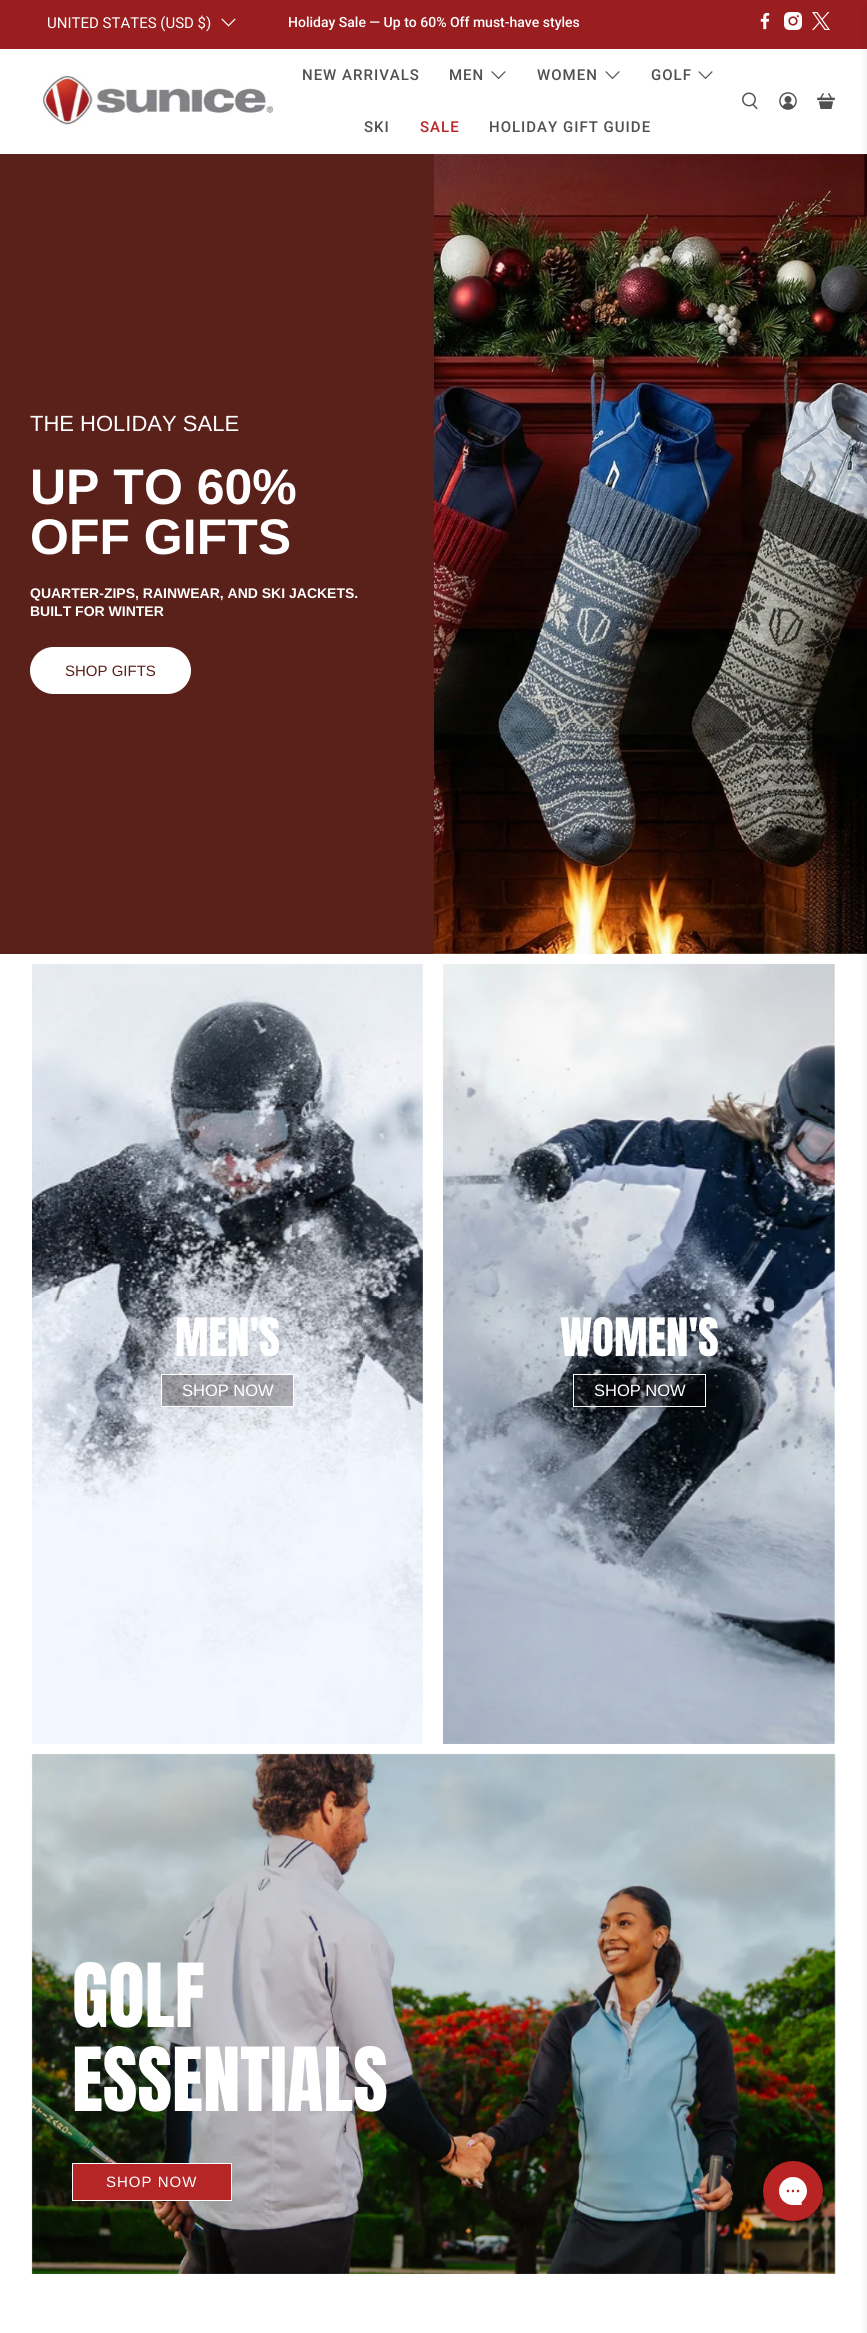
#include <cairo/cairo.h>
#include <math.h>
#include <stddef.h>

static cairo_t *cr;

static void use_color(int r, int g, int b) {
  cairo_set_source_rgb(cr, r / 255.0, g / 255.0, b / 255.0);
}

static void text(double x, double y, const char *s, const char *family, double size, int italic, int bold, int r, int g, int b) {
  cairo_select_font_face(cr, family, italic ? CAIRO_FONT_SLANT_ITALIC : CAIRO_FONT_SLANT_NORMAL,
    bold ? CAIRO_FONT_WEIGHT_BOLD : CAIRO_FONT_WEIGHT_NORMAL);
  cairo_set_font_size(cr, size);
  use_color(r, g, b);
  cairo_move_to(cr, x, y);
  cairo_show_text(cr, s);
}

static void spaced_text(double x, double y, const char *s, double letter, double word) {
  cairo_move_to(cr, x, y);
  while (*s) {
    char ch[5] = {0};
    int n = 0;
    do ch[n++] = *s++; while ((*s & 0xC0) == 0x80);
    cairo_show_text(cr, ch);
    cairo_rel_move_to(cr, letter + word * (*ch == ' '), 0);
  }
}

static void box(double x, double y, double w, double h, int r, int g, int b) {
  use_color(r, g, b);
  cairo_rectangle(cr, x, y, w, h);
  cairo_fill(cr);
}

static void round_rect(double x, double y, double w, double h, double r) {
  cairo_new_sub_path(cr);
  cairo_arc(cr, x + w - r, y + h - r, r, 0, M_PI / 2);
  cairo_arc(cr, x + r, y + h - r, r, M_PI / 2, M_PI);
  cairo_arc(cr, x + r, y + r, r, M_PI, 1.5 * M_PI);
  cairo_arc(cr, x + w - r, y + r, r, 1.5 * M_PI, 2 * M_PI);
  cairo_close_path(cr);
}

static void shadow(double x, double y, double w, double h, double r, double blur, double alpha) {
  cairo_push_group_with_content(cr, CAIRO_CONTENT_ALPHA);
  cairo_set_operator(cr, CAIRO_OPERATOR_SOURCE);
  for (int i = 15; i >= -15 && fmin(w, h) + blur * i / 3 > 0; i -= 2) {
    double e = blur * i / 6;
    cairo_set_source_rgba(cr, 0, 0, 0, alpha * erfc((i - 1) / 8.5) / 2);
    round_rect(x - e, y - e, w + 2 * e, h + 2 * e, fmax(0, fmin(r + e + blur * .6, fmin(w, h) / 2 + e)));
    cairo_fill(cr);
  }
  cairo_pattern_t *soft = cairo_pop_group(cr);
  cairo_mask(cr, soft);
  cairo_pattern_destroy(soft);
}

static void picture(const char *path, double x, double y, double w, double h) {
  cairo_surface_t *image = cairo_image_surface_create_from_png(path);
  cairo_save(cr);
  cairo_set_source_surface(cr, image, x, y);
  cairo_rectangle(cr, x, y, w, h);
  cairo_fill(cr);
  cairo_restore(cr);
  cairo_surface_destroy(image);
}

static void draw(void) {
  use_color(255, 255, 255);
  cairo_paint(cr);
  box(0, 0, 867, 49, 154, 29, 32);
  picture("img_01.png", 221, 18, 15, 9);
  picture("img_02.png", 760, 12, 10, 18);
  picture("img_03.png", 784, 12, 18, 18);
  picture("img_04.png", 812, 12, 18, 18);
  picture("img_10.png", 434, 154, 433, 800);
  use_color(10, 10, 10);
  shadow(867, 8, 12, 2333, 0, 4, 0.1);
  picture("img_05.png", 43, 76, 230, 50);
  picture("img_06.png", 491, 71, 15, 9);
  picture("img_06.png", 605, 71, 15, 9);
  picture("img_06.png", 698, 71, 15, 9);
  picture("img_07.png", 742, 92, 16, 18);
  picture("img_08.png", 779, 92, 18, 18);
  picture("img_09.png", 817, 93, 18, 16);
  box(0, 154, 434, 800, 90, 33, 27);
  use_color(255, 255, 255);
  round_rect(30, 647, 161, 47, 23.5);
  cairo_fill(cr);
  picture("img_11.png", 32, 964, 391, 780);
  cairo_set_source_rgba(cr, 0.047, 0.004, 0.004, 0.28);
  cairo_rectangle(cr, 161.5, 1374.5, 132, 32);
  cairo_fill_preserve(cr);
  use_color(255, 255, 255);
  cairo_set_line_width(cr, 1);
  cairo_stroke(cr);
  picture("img_12.png", 443, 964, 392, 780);
  cairo_set_source_rgba(cr, 0.047, 0.004, 0.004, 0.28);
  cairo_rectangle(cr, 573.5, 1374.5, 132, 32);
  cairo_fill_preserve(cr);
  use_color(255, 255, 255);
  cairo_stroke(cr);
  picture("img_13.png", 31, 1753, 805, 521);
  use_color(183, 38, 38);
  cairo_rectangle(cr, 72.5, 2163.5, 159, 37);
  cairo_fill_preserve(cr);
  use_color(255, 255, 255);
  cairo_stroke(cr);
  picture("img_14.png", 763, 2161, 60, 64);
  text(47, 28, "UNITED STATES (USD $)", "Roboto", 15, 0, 0, 255, 255, 255);
  text(288, 27, "Holiday Sale — Up to 60% Off must-have styles", "Roboto Medium", 14, 0, 0, 255, 255, 255);
  cairo_set_font_size(cr, 15);
  use_color(80, 79, 81);
  spaced_text(302, 80, "NEW ARRIVALS", 1, 0);
  spaced_text(449, 80, "MEN", 1, 0);
  spaced_text(537, 80, "WOMEN", 1, 0);
  spaced_text(651, 80, "GOLF", 1, 0);
  spaced_text(364, 132, "SKI", 1, 0);
  use_color(183, 38, 38);
  spaced_text(420, 132, "SALE", 1, 0);
  use_color(80, 79, 81);
  spaced_text(489, 132, "HOLIDAY GIFT GUIDE", 1, 0);
  text(30, 431, "THE HOLIDAY SALE", "Liberation Sans", 22, 0, 0, 255, 255, 255);
  text(30, 504, "UP TO 60%", "Liberation Sans", 50, 0, 1, 255, 255, 255);
  text(30, 554, "OFF GIFTS", "Liberation Sans", 50, 0, 1, 255, 255, 255);
  text(30, 598, "QUARTER-ZIPS, RAINWEAR, AND SKI JACKETS.", "Liberation Sans", 14, 0, 1, 255, 255, 255);
  text(30, 616, "BUILT FOR WINTER", "Liberation Sans", 14, 0, 1, 255, 255, 255);
  text(65, 676, "SHOP GIFTS", "Liberation Sans", 15, 0, 0, 90, 33, 27);
  text(175, 1356, "MEN'S", "Anton", 45, 0, 0, 255, 255, 255);
  text(182, 1396, "SHOP NOW", "Liberation Sans", 16.5, 0, 0, 255, 255, 255);
  text(560, 1356, "WOMEN'S", "Anton", 45, 0, 0, 255, 255, 255);
  text(594, 1396, "SHOP NOW", "Liberation Sans", 16.5, 0, 0, 255, 255, 255);
  text(72, 2027, "GOLF", "Anton", 75, 0, 0, 255, 255, 255);
  text(72, 2111, "ESSENTIALS", "Anton", 75, 0, 0, 255, 255, 255);
  cairo_select_font_face(cr, "Liberation Sans", CAIRO_FONT_SLANT_NORMAL, CAIRO_FONT_WEIGHT_NORMAL);
  cairo_set_font_size(cr, 15);
  spaced_text(106, 2187, "SHOP NOW", 1, 0);
}

int main(void) {
  cairo_surface_t *surface = cairo_image_surface_create(CAIRO_FORMAT_RGB24, 867, 2333);
  cr = cairo_create(surface);
  cairo_font_options_t *options = cairo_font_options_create();
  cairo_font_options_set_hint_metrics(options, CAIRO_HINT_METRICS_OFF);
  cairo_font_options_set_hint_style(options, CAIRO_HINT_STYLE_NONE);
  cairo_set_font_options(cr, options);
  cairo_set_miter_limit(cr, 4);
  draw();
  cairo_surface_write_to_png(surface, "out.png");
  cairo_font_options_destroy(options);
  cairo_destroy(cr);
  cairo_surface_destroy(surface);
  return 0;
}
